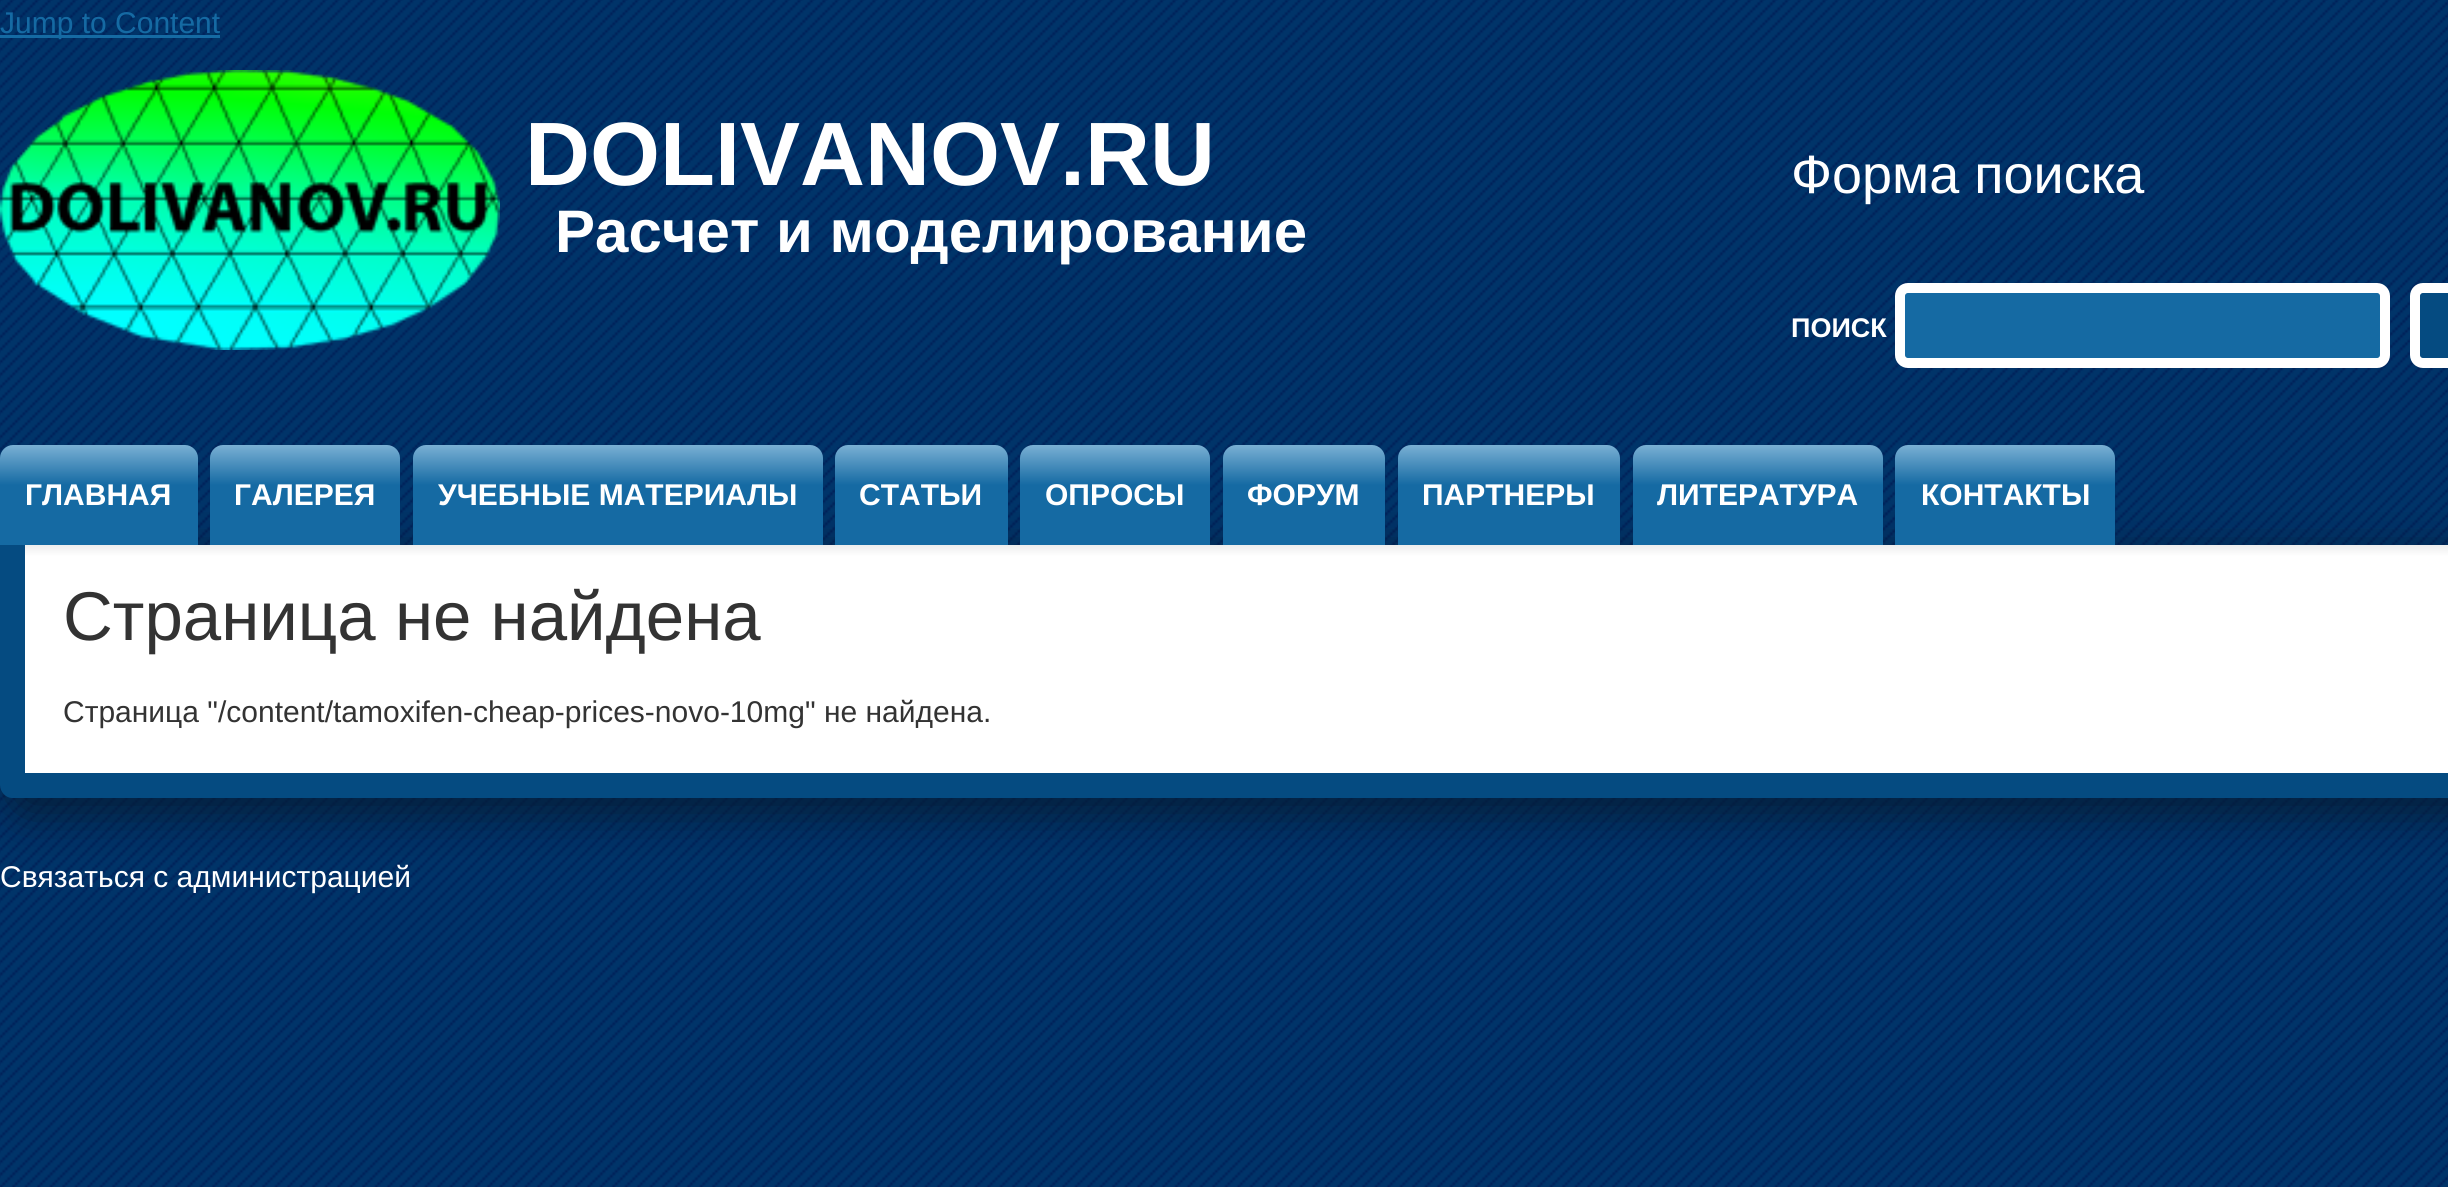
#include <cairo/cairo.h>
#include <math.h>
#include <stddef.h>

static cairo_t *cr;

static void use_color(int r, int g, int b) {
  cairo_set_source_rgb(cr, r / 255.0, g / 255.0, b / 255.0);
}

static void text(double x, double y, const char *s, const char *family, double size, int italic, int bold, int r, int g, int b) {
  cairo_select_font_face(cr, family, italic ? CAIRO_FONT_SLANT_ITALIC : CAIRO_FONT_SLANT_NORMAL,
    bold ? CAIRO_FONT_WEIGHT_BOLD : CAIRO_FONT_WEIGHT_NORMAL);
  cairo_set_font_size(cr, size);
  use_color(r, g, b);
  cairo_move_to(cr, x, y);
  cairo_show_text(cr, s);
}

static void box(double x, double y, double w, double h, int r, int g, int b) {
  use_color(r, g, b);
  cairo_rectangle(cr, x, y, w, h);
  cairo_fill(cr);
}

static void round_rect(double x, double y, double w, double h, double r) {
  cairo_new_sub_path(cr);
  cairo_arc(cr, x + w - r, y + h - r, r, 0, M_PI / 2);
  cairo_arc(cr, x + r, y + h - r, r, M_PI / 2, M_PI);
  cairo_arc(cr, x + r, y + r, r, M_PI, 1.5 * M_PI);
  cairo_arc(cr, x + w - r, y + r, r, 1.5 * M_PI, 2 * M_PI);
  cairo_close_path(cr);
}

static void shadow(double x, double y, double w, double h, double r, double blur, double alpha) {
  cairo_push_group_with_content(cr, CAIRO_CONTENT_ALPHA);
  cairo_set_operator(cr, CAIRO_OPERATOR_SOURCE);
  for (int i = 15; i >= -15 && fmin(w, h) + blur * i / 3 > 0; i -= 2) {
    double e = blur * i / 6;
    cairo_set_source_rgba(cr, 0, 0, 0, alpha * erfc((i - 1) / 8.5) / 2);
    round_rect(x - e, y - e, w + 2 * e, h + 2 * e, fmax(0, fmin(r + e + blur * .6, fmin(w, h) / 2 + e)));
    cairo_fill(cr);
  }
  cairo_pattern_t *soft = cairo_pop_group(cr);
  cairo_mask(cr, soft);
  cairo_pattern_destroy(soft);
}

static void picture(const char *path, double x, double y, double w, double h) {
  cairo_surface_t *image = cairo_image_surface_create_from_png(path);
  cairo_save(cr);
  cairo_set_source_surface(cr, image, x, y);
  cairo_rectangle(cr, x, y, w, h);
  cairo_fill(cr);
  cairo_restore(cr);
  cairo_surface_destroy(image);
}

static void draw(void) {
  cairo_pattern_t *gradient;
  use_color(255, 255, 255);
  cairo_paint(cr);
  picture("img_01.png", 0, 0, 2448, 1187);
  box(0, 35, 220, 3, 21, 106, 163);
  picture("img_02.png", 0, 70, 500, 280);
  round_rect(1900, 288, 485, 75, 8);
  cairo_fill_preserve(cr);
  use_color(255, 255, 255);
  cairo_set_line_width(cr, 10);
  cairo_stroke(cr);
  use_color(5, 75, 129);
  round_rect(2415, 288, 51, 75, 8);
  cairo_fill_preserve(cr);
  use_color(255, 255, 255);
  cairo_stroke(cr);
  use_color(5, 27, 50);
  shadow(13, 558, 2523, 252, 13, 25, 1);
  gradient = cairo_pattern_create_linear(0, 445, 0, 545);
  cairo_pattern_add_color_stop_rgba(gradient, 0, 0.478, 0.69, 0.831, 1);
  cairo_pattern_add_color_stop_rgba(gradient, 0.4, 0.082, 0.416, 0.639, 1);
  cairo_set_source(cr, gradient);
  cairo_pattern_destroy(gradient);
  cairo_new_path(cr);
  cairo_move_to(cr, 13, 445);
  cairo_line_to(cr, 185, 445);
  cairo_curve_to(cr, 192, 445, 198, 451, 198, 458);
  cairo_line_to(cr, 198, 545);
  cairo_line_to(cr, 0, 545);
  cairo_line_to(cr, 0, 458);
  cairo_curve_to(cr, 0, 451, 6, 445, 13, 445);
  cairo_close_path(cr);
  cairo_fill(cr);
  gradient = cairo_pattern_create_linear(210, 445, 210, 545);
  cairo_pattern_add_color_stop_rgba(gradient, 0, 0.478, 0.69, 0.831, 1);
  cairo_pattern_add_color_stop_rgba(gradient, 0.4, 0.082, 0.416, 0.639, 1);
  cairo_set_source(cr, gradient);
  cairo_pattern_destroy(gradient);
  cairo_new_path(cr);
  cairo_move_to(cr, 223, 445);
  cairo_line_to(cr, 387, 445);
  cairo_curve_to(cr, 394, 445, 400, 451, 400, 458);
  cairo_line_to(cr, 400, 545);
  cairo_line_to(cr, 210, 545);
  cairo_line_to(cr, 210, 458);
  cairo_curve_to(cr, 210, 451, 216, 445, 223, 445);
  cairo_close_path(cr);
  cairo_fill(cr);
  gradient = cairo_pattern_create_linear(413, 445, 413, 545);
  cairo_pattern_add_color_stop_rgba(gradient, 0, 0.478, 0.69, 0.831, 1);
  cairo_pattern_add_color_stop_rgba(gradient, 0.4, 0.082, 0.416, 0.639, 1);
  cairo_set_source(cr, gradient);
  cairo_pattern_destroy(gradient);
  cairo_new_path(cr);
  cairo_move_to(cr, 426, 445);
  cairo_line_to(cr, 810, 445);
  cairo_curve_to(cr, 817, 445, 823, 451, 823, 458);
  cairo_line_to(cr, 823, 545);
  cairo_line_to(cr, 413, 545);
  cairo_line_to(cr, 413, 458);
  cairo_curve_to(cr, 413, 451, 419, 445, 426, 445);
  cairo_close_path(cr);
  cairo_fill(cr);
  gradient = cairo_pattern_create_linear(835, 445, 835, 545);
  cairo_pattern_add_color_stop_rgba(gradient, 0, 0.478, 0.69, 0.831, 1);
  cairo_pattern_add_color_stop_rgba(gradient, 0.4, 0.082, 0.416, 0.639, 1);
  cairo_set_source(cr, gradient);
  cairo_pattern_destroy(gradient);
  cairo_new_path(cr);
  cairo_move_to(cr, 848, 445);
  cairo_line_to(cr, 995, 445);
  cairo_curve_to(cr, 1002, 445, 1008, 451, 1008, 458);
  cairo_line_to(cr, 1008, 545);
  cairo_line_to(cr, 835, 545);
  cairo_line_to(cr, 835, 458);
  cairo_curve_to(cr, 835, 451, 841, 445, 848, 445);
  cairo_close_path(cr);
  cairo_fill(cr);
  gradient = cairo_pattern_create_linear(1020, 445, 1020, 545);
  cairo_pattern_add_color_stop_rgba(gradient, 0, 0.478, 0.69, 0.831, 1);
  cairo_pattern_add_color_stop_rgba(gradient, 0.4, 0.082, 0.416, 0.639, 1);
  cairo_set_source(cr, gradient);
  cairo_pattern_destroy(gradient);
  cairo_new_path(cr);
  cairo_move_to(cr, 1033, 445);
  cairo_line_to(cr, 1197, 445);
  cairo_curve_to(cr, 1204, 445, 1210, 451, 1210, 458);
  cairo_line_to(cr, 1210, 545);
  cairo_line_to(cr, 1020, 545);
  cairo_line_to(cr, 1020, 458);
  cairo_curve_to(cr, 1020, 451, 1026, 445, 1033, 445);
  cairo_close_path(cr);
  cairo_fill(cr);
  gradient = cairo_pattern_create_linear(1223, 445, 1223, 545);
  cairo_pattern_add_color_stop_rgba(gradient, 0, 0.478, 0.69, 0.831, 1);
  cairo_pattern_add_color_stop_rgba(gradient, 0.4, 0.082, 0.416, 0.639, 1);
  cairo_set_source(cr, gradient);
  cairo_pattern_destroy(gradient);
  cairo_new_path(cr);
  cairo_move_to(cr, 1236, 445);
  cairo_line_to(cr, 1372, 445);
  cairo_curve_to(cr, 1379, 445, 1385, 451, 1385, 458);
  cairo_line_to(cr, 1385, 545);
  cairo_line_to(cr, 1223, 545);
  cairo_line_to(cr, 1223, 458);
  cairo_curve_to(cr, 1223, 451, 1229, 445, 1236, 445);
  cairo_close_path(cr);
  cairo_fill(cr);
  gradient = cairo_pattern_create_linear(1398, 445, 1398, 545);
  cairo_pattern_add_color_stop_rgba(gradient, 0, 0.478, 0.69, 0.831, 1);
  cairo_pattern_add_color_stop_rgba(gradient, 0.4, 0.082, 0.416, 0.639, 1);
  cairo_set_source(cr, gradient);
  cairo_pattern_destroy(gradient);
  cairo_new_path(cr);
  cairo_move_to(cr, 1411, 445);
  cairo_line_to(cr, 1607, 445);
  cairo_curve_to(cr, 1614, 445, 1620, 451, 1620, 458);
  cairo_line_to(cr, 1620, 545);
  cairo_line_to(cr, 1398, 545);
  cairo_line_to(cr, 1398, 458);
  cairo_curve_to(cr, 1398, 451, 1404, 445, 1411, 445);
  cairo_close_path(cr);
  cairo_fill(cr);
  gradient = cairo_pattern_create_linear(1633, 445, 1633, 545);
  cairo_pattern_add_color_stop_rgba(gradient, 0, 0.478, 0.69, 0.831, 1);
  cairo_pattern_add_color_stop_rgba(gradient, 0.4, 0.082, 0.416, 0.639, 1);
  cairo_set_source(cr, gradient);
  cairo_pattern_destroy(gradient);
  cairo_new_path(cr);
  cairo_move_to(cr, 1646, 445);
  cairo_line_to(cr, 1870, 445);
  cairo_curve_to(cr, 1877, 445, 1883, 451, 1883, 458);
  cairo_line_to(cr, 1883, 545);
  cairo_line_to(cr, 1633, 545);
  cairo_line_to(cr, 1633, 458);
  cairo_curve_to(cr, 1633, 451, 1639, 445, 1646, 445);
  cairo_close_path(cr);
  cairo_fill(cr);
  gradient = cairo_pattern_create_linear(1895, 445, 1895, 545);
  cairo_pattern_add_color_stop_rgba(gradient, 0, 0.478, 0.69, 0.831, 1);
  cairo_pattern_add_color_stop_rgba(gradient, 0.4, 0.082, 0.416, 0.639, 1);
  cairo_set_source(cr, gradient);
  cairo_pattern_destroy(gradient);
  cairo_new_path(cr);
  cairo_move_to(cr, 1908, 445);
  cairo_line_to(cr, 2102, 445);
  cairo_curve_to(cr, 2109, 445, 2115, 451, 2115, 458);
  cairo_line_to(cr, 2115, 545);
  cairo_line_to(cr, 1895, 545);
  cairo_line_to(cr, 1895, 458);
  cairo_curve_to(cr, 1895, 451, 1901, 445, 1908, 445);
  cairo_close_path(cr);
  cairo_fill(cr);
  use_color(5, 75, 129);
  cairo_set_fill_rule(cr, CAIRO_FILL_RULE_EVEN_ODD);
  cairo_new_path(cr);
  cairo_move_to(cr, 0, 545);
  cairo_line_to(cr, 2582, 545);
  cairo_curve_to(cr, 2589, 545, 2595, 551, 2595, 558);
  cairo_line_to(cr, 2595, 785);
  cairo_curve_to(cr, 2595, 792, 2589, 798, 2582, 798);
  cairo_line_to(cr, 12, 798);
  cairo_curve_to(cr, 6, 798, 0, 792, 0, 785);
  cairo_close_path(cr);
  cairo_move_to(cr, 25, 545);
  cairo_line_to(cr, 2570, 545);
  cairo_line_to(cr, 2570, 772);
  cairo_line_to(cr, 25, 772);
  cairo_close_path(cr);
  cairo_fill(cr);
  gradient = cairo_pattern_create_linear(25, 545, 25, 773);
  cairo_pattern_add_color_stop_rgba(gradient, 0, 0.933, 0.933, 0.933, 1);
  cairo_pattern_add_color_stop_rgba(gradient, 0.05, 1, 1, 1, 1);
  cairo_set_source(cr, gradient);
  cairo_pattern_destroy(gradient);
  cairo_rectangle(cr, 25, 545, 2423, 228);
  cairo_fill(cr);
  text(0, 33, "Jump to Content", "Liberation Sans", 30, 0, 0, 21, 106, 163);
  text(525, 185, "DOLIVANOV.RU", "Liberation Sans", 90, 0, 1, 255, 255, 255);
  text(555, 252, "Расчет и моделирование", "Liberation Sans", 60, 0, 1, 255, 255, 255);
  text(1791, 193, "Форма поиска", "Liberation Sans", 54, 0, 0, 255, 255, 255);
  text(1791, 337, "ПОИСК", "Liberation Sans", 27, 0, 1, 255, 255, 255);
  text(25, 505, "ГЛАВНАЯ", "Liberation Sans", 30, 0, 1, 255, 255, 255);
  text(234, 505, "ГАЛЕРЕЯ", "Liberation Sans", 30, 0, 1, 255, 255, 255);
  text(438, 505, "УЧЕБНЫЕ МАТЕРИАЛЫ", "Liberation Sans", 30, 0, 1, 255, 255, 255);
  text(859, 505, "CТАТЬИ", "Liberation Sans", 30, 0, 1, 255, 255, 255);
  text(1045, 505, "ОПРОСЫ", "Liberation Sans", 30, 0, 1, 255, 255, 255);
  text(1247, 505, "ФОРУМ", "Liberation Sans", 30, 0, 1, 255, 255, 255);
  text(1422, 505, "ПАРТНЕРЫ", "Liberation Sans", 30, 0, 1, 255, 255, 255);
  text(1657, 505, "ЛИТЕРАТУРА", "Liberation Sans", 30, 0, 1, 255, 255, 255);
  text(1921, 505, "КОНТАКТЫ", "Liberation Sans", 30, 0, 1, 255, 255, 255);
  text(63, 640, "Страница не найдена", "Liberation Sans", 69, 0, 0, 51, 51, 51);
  text(63, 722, "Страница \"/content/tamoxifen-cheap-prices-novo-10mg\" не найдена.", "Liberation Sans", 30, 0, 0, 51, 51, 51);
  text(0, 887, "Связаться с администрацией", "Liberation Sans", 30, 0, 0, 255, 255, 255);
}

int main(void) {
  cairo_surface_t *surface = cairo_image_surface_create(CAIRO_FORMAT_RGB24, 2448, 1187);
  cr = cairo_create(surface);
  cairo_font_options_t *options = cairo_font_options_create();
  cairo_font_options_set_hint_metrics(options, CAIRO_HINT_METRICS_OFF);
  cairo_font_options_set_hint_style(options, CAIRO_HINT_STYLE_NONE);
  cairo_set_font_options(cr, options);
  cairo_set_miter_limit(cr, 4);
  draw();
  cairo_surface_write_to_png(surface, "out.png");
  cairo_font_options_destroy(options);
  cairo_destroy(cr);
  cairo_surface_destroy(surface);
  return 0;
}
